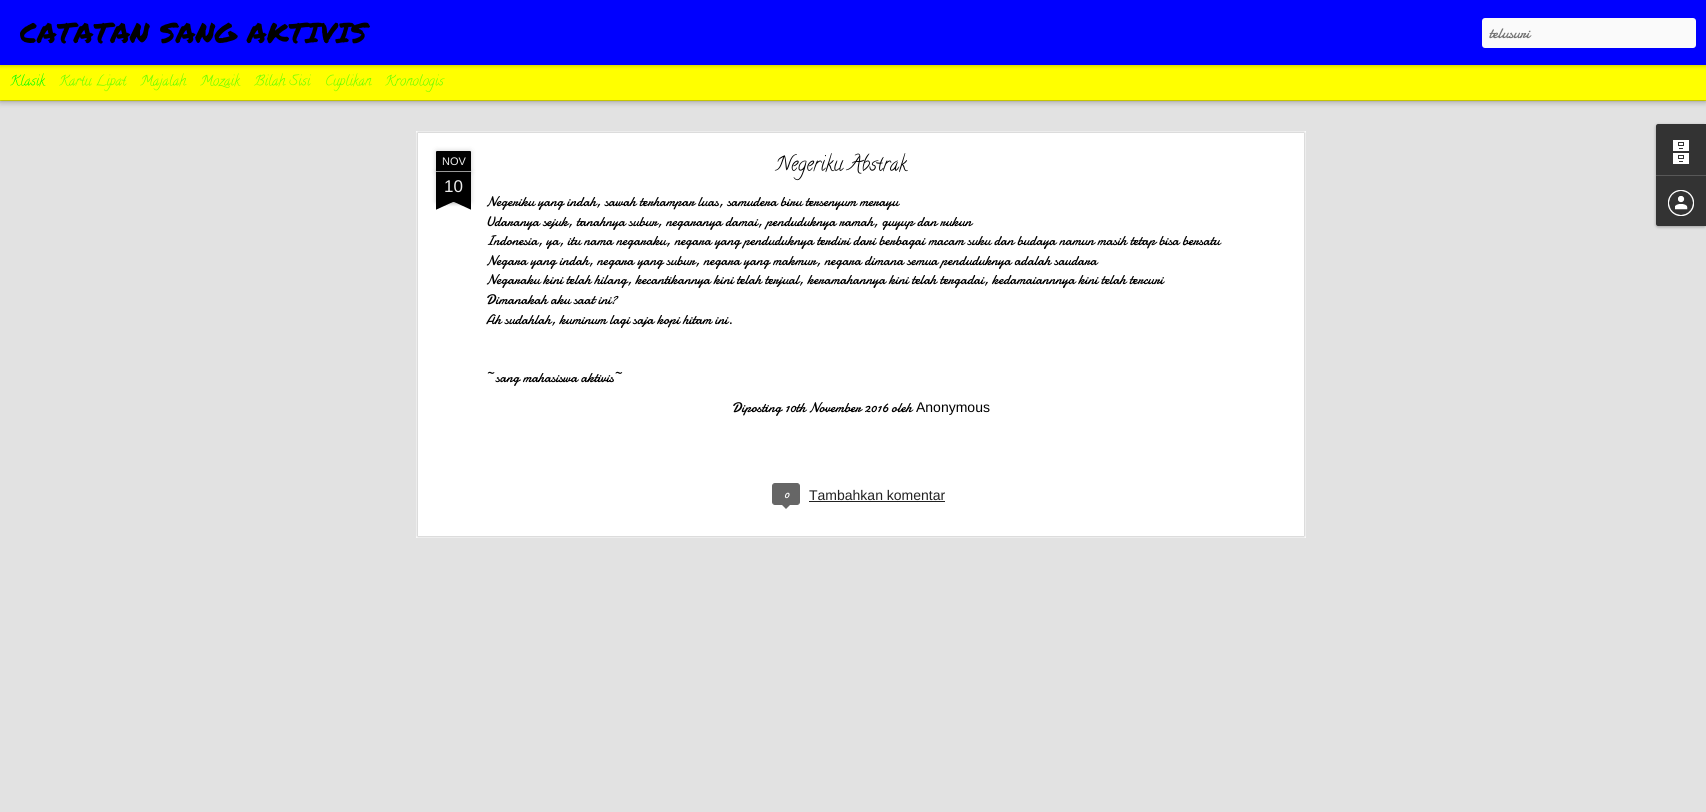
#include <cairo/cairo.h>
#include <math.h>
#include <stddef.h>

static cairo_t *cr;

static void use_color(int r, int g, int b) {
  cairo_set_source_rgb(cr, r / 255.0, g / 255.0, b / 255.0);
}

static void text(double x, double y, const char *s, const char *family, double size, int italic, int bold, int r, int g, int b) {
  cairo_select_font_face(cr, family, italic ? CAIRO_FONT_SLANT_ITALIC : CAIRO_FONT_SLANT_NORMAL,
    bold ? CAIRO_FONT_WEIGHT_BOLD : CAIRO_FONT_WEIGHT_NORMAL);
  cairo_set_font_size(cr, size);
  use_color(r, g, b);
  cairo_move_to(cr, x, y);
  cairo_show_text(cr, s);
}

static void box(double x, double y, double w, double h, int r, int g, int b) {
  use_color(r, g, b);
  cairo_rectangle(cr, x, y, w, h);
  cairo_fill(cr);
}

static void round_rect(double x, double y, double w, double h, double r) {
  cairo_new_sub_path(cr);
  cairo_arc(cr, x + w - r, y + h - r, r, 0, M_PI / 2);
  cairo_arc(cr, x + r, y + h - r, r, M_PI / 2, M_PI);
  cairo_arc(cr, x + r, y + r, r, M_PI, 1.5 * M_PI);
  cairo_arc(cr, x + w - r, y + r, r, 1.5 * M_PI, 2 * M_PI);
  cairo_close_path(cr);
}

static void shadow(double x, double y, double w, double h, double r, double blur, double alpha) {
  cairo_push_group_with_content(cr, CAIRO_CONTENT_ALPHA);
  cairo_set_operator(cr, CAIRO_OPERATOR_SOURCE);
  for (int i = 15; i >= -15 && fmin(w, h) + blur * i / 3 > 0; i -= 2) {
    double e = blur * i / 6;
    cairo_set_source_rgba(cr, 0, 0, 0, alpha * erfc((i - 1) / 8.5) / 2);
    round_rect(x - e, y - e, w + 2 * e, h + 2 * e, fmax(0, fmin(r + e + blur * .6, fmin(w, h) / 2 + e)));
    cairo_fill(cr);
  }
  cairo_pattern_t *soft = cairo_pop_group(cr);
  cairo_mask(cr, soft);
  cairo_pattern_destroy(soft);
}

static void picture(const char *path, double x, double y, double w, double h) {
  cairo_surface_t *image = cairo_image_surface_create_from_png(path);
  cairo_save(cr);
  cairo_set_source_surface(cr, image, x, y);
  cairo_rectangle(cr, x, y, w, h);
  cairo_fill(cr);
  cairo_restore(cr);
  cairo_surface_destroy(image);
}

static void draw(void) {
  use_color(255, 255, 0);
  cairo_paint(cr);
  box(0, 101, 1706, 711, 226, 226, 226);
  use_color(0, 0, 0);
  shadow(0, 65, 1706, 35, 0, 4, 0.5);
  box(0, 65, 1706, 35, 255, 255, 0);
  use_color(0, 0, 0);
  shadow(0, 0, 1706, 65, 0, 2.5, 0.3);
  box(0, 0, 1706, 65, 0, 0, 255);
  use_color(250, 250, 250);
  round_rect(1482, 18, 214, 30, 3);
  cairo_fill(cr);
  box(416, 131, 890, 407, 255, 255, 255);
  picture("img_01.png", 416, 131, 890, 407);
  use_color(0, 0, 0);
  shadow(436, 172, 35, 30, 0, 2.5, 0.2);
  box(436, 172, 35, 30, 0, 0, 0);
  use_color(0, 0, 0);
  shadow(436, 151, 35, 21, 1, 2.5, 0.2);
  use_color(0, 0, 0);
  cairo_new_path(cr);
  cairo_move_to(cr, 437, 151);
  cairo_line_to(cr, 470, 151);
  cairo_curve_to(cr, 470.5, 151, 471, 151.5, 471, 152);
  cairo_line_to(cr, 471, 172);
  cairo_line_to(cr, 436, 172);
  cairo_line_to(cr, 436, 152);
  cairo_curve_to(cr, 436, 151.5, 436.5, 151, 437, 151);
  cairo_close_path(cr);
  cairo_fill(cr);
  box(436, 171, 35, 1, 153, 153, 153);
  cairo_save(cr);
  cairo_rectangle(cr, 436, 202, 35, 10);
  cairo_clip(cr);
  use_color(0, 0, 0);
  shadow(427, 192, 50, 10, 0, 2.5, 0.2);
  cairo_restore(cr);
  cairo_save(cr);
  cairo_rectangle(cr, 436, 202, 35, 10);
  cairo_clip(cr);
  use_color(0, 0, 0);
  cairo_new_path(cr);
  cairo_move_to(cr, 427, 203);
  cairo_line_to(cr, 473, 182);
  cairo_line_to(cr, 477, 191);
  cairo_line_to(cr, 431, 212);
  cairo_close_path(cr);
  cairo_fill(cr);
  cairo_restore(cr);
  cairo_save(cr);
  cairo_rectangle(cr, 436, 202, 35, 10);
  cairo_clip(cr);
  use_color(0, 0, 0);
  shadow(430, 192, 50, 10, 0, 2.5, 0.2);
  cairo_restore(cr);
  cairo_save(cr);
  cairo_rectangle(cr, 436, 202, 35, 10);
  cairo_clip(cr);
  use_color(0, 0, 0);
  cairo_new_path(cr);
  cairo_move_to(cr, 434, 182);
  cairo_line_to(cr, 480, 203);
  cairo_line_to(cr, 476, 212);
  cairo_line_to(cr, 430, 191);
  cairo_close_path(cr);
  cairo_fill(cr);
  cairo_restore(cr);
  use_color(102, 102, 102);
  round_rect(772.5, 483.5, 27, 21, 2.5);
  cairo_fill_preserve(cr);
  cairo_set_line_width(cr, 1);
  cairo_stroke(cr);
  cairo_new_path(cr);
  cairo_move_to(cr, 781, 504);
  cairo_line_to(cr, 791, 504);
  cairo_line_to(cr, 786, 509);
  cairo_close_path(cr);
  cairo_fill(cr);
  box(809, 501, 136, 1, 34, 34, 34);
  use_color(0, 0, 0);
  shadow(1656, 125, 50, 102, 2, 1.5, 0.3);
  use_color(51, 51, 51);
  cairo_new_path(cr);
  cairo_move_to(cr, 1658, 124);
  cairo_line_to(cr, 1706, 124);
  cairo_line_to(cr, 1706, 175);
  cairo_line_to(cr, 1656, 175);
  cairo_line_to(cr, 1656, 126);
  cairo_curve_to(cr, 1656, 125, 1657, 124, 1658, 124);
  cairo_close_path(cr);
  cairo_fill(cr);
  picture("img_02.png", 1673, 140, 16, 24);
  cairo_new_path(cr);
  cairo_move_to(cr, 1656, 175);
  cairo_line_to(cr, 1706, 175);
  cairo_line_to(cr, 1706, 226);
  cairo_line_to(cr, 1658, 226);
  cairo_curve_to(cr, 1657, 226, 1656, 225, 1656, 224);
  cairo_close_path(cr);
  cairo_fill(cr);
  box(1656, 175, 50, 1, 88, 88, 88);
  picture("img_03.png", 1668, 190, 26, 26);
  text(20, 43, "CATATAN SANG AKTIVIS", "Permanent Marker", 28, 0, 0, 0, 0, 0);
  text(1489, 38, "telusuri", "Damion", 15, 0, 0, 117, 117, 117);
  text(10, 85, "Klasik", "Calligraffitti", 14, 0, 0, 0, 255, 0);
  text(59, 85, "Kartu Lipat", "Calligraffitti", 14, 0, 0, 102, 255, 0);
  text(140, 85, "Majalah", "Calligraffitti", 14, 0, 0, 102, 255, 0);
  text(200, 85, "Mozaik", "Calligraffitti", 14, 0, 0, 102, 255, 0);
  text(254, 85, "Bilah Sisi", "Calligraffitti", 14, 0, 0, 102, 255, 0);
  text(325, 85, "Cuplikan", "Calligraffitti", 14, 0, 0, 102, 255, 0);
  text(385, 85, "Kronologis", "Calligraffitti", 14, 0, 0, 102, 255, 0);
  text(442, 165, "NOV", "Liberation Sans", 11, 0, 0, 238, 238, 238);
  text(444, 192, "10", "Liberation Sans", 17, 0, 0, 238, 238, 238);
  text(776, 170, "Negeriku Abstrak", "Calligraffitti", 20, 0, 0, 0, 0, 0);
  text(486, 206, "Negeriku yang indah, sawah terhampar luas, samudera biru tersenyum merayu", "Damion", 14, 0, 0, 0, 0, 0);
  text(486, 226, "Udaranya sejuk, tanahnya subur, negaranya damai, penduduknya ramah, guyup dan rukun", "Damion", 14, 0, 0, 0, 0, 0);
  text(486, 245, "Indonesia, ya, itu nama negaraku, negara yang penduduknya terdiri dari berbagai macam suku dan budaya namun masih tetap bisa bersatu", "Damion", 14, 0, 0, 0, 0, 0);
  text(486, 265, "Negara yang indah, negara yang subur, negara yang makmur, negara dimana semua penduduknya adalah saudara", "Damion", 14, 0, 0, 0, 0, 0);
  text(486, 284, "Negaraku kini telah hilang, kecantikannya kini telah terjual, keramahannya kini telah tergadai, kedamaiannnya kini telah tercuri", "Damion", 14, 0, 0, 0, 0, 0);
  text(486, 304, "Dimanakah aku saat ini?", "Damion", 14, 0, 0, 0, 0, 0);
  text(486, 324, "Ah sudahlah, kuminum lagi saja kopi hitam ini.", "Damion", 14, 0, 0, 0, 0, 0);
  text(486, 382, "~sang mahasiswa aktivis~", "Damion", 14, 0, 0, 0, 0, 0);
  text(732, 412, "Diposting 10th November 2016 oleh", "Damion", 14, 0, 0, 0, 0, 0);
  text(916, 412, "Anonymous", "Liberation Sans", 14, 0, 0, 0, 0, 0);
  text(784, 498, "0", "Damion", 12, 0, 0, 255, 255, 255);
  text(809, 500, "Tambahkan komentar", "Liberation Sans", 14, 0, 0, 34, 34, 34);
}

int main(void) {
  cairo_surface_t *surface = cairo_image_surface_create(CAIRO_FORMAT_RGB24, 1706, 812);
  cr = cairo_create(surface);
  cairo_font_options_t *options = cairo_font_options_create();
  cairo_font_options_set_hint_metrics(options, CAIRO_HINT_METRICS_OFF);
  cairo_font_options_set_hint_style(options, CAIRO_HINT_STYLE_NONE);
  cairo_set_font_options(cr, options);
  cairo_set_miter_limit(cr, 4);
  draw();
  cairo_surface_write_to_png(surface, "out.png");
  cairo_font_options_destroy(options);
  cairo_destroy(cr);
  cairo_surface_destroy(surface);
  return 0;
}
